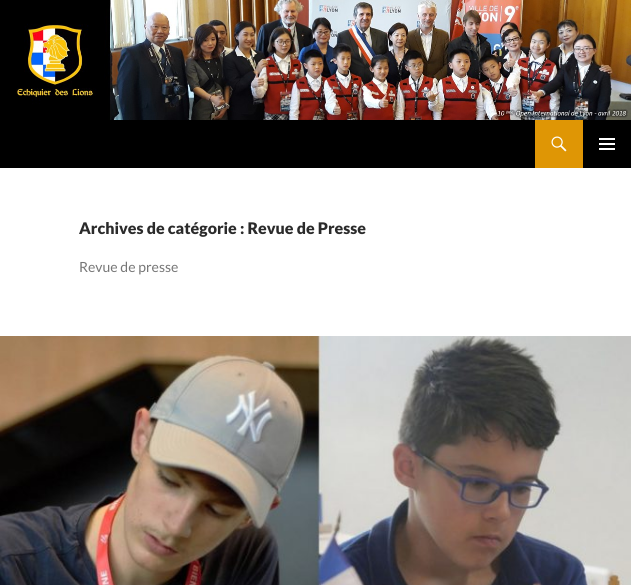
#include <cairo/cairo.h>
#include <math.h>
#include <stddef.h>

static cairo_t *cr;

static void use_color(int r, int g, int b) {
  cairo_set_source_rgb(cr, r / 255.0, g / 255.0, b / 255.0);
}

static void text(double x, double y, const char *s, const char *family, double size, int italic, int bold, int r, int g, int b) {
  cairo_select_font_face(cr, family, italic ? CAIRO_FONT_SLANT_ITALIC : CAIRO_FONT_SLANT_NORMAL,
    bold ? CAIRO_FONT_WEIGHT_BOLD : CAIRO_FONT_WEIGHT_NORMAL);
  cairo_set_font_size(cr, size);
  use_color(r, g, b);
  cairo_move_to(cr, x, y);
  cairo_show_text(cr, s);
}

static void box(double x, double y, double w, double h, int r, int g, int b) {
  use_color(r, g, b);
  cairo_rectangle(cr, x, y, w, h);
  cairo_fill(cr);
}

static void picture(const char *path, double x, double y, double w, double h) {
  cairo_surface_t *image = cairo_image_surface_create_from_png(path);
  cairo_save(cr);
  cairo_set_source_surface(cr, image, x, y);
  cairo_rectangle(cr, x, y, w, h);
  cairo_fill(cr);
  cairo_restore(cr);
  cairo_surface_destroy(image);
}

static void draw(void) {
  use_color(255, 255, 255);
  cairo_paint(cr);
  picture("img_01.png", 0, 0, 631, 120);
  box(0, 120, 631, 48, 0, 0, 0);
  box(535, 120, 48, 48, 223, 150, 5);
  picture("img_02.png", 551, 136, 16, 16);
  picture("img_03.png", 599, 138, 16, 12);
  picture("img_04.png", 0, 336, 631, 249);
  text(79, 234, "Archives de catégorie : Revue de Presse", "Lato Black", 16, 0, 0, 43, 43, 43);
  text(79, 272, "Revue de presse", "Lato", 14, 0, 0, 118, 118, 118);
}

int main(void) {
  cairo_surface_t *surface = cairo_image_surface_create(CAIRO_FORMAT_RGB24, 631, 585);
  cr = cairo_create(surface);
  cairo_font_options_t *options = cairo_font_options_create();
  cairo_font_options_set_hint_metrics(options, CAIRO_HINT_METRICS_OFF);
  cairo_font_options_set_hint_style(options, CAIRO_HINT_STYLE_NONE);
  cairo_set_font_options(cr, options);
  cairo_set_miter_limit(cr, 4);
  draw();
  cairo_surface_write_to_png(surface, "out.png");
  cairo_font_options_destroy(options);
  cairo_destroy(cr);
  cairo_surface_destroy(surface);
  return 0;
}
